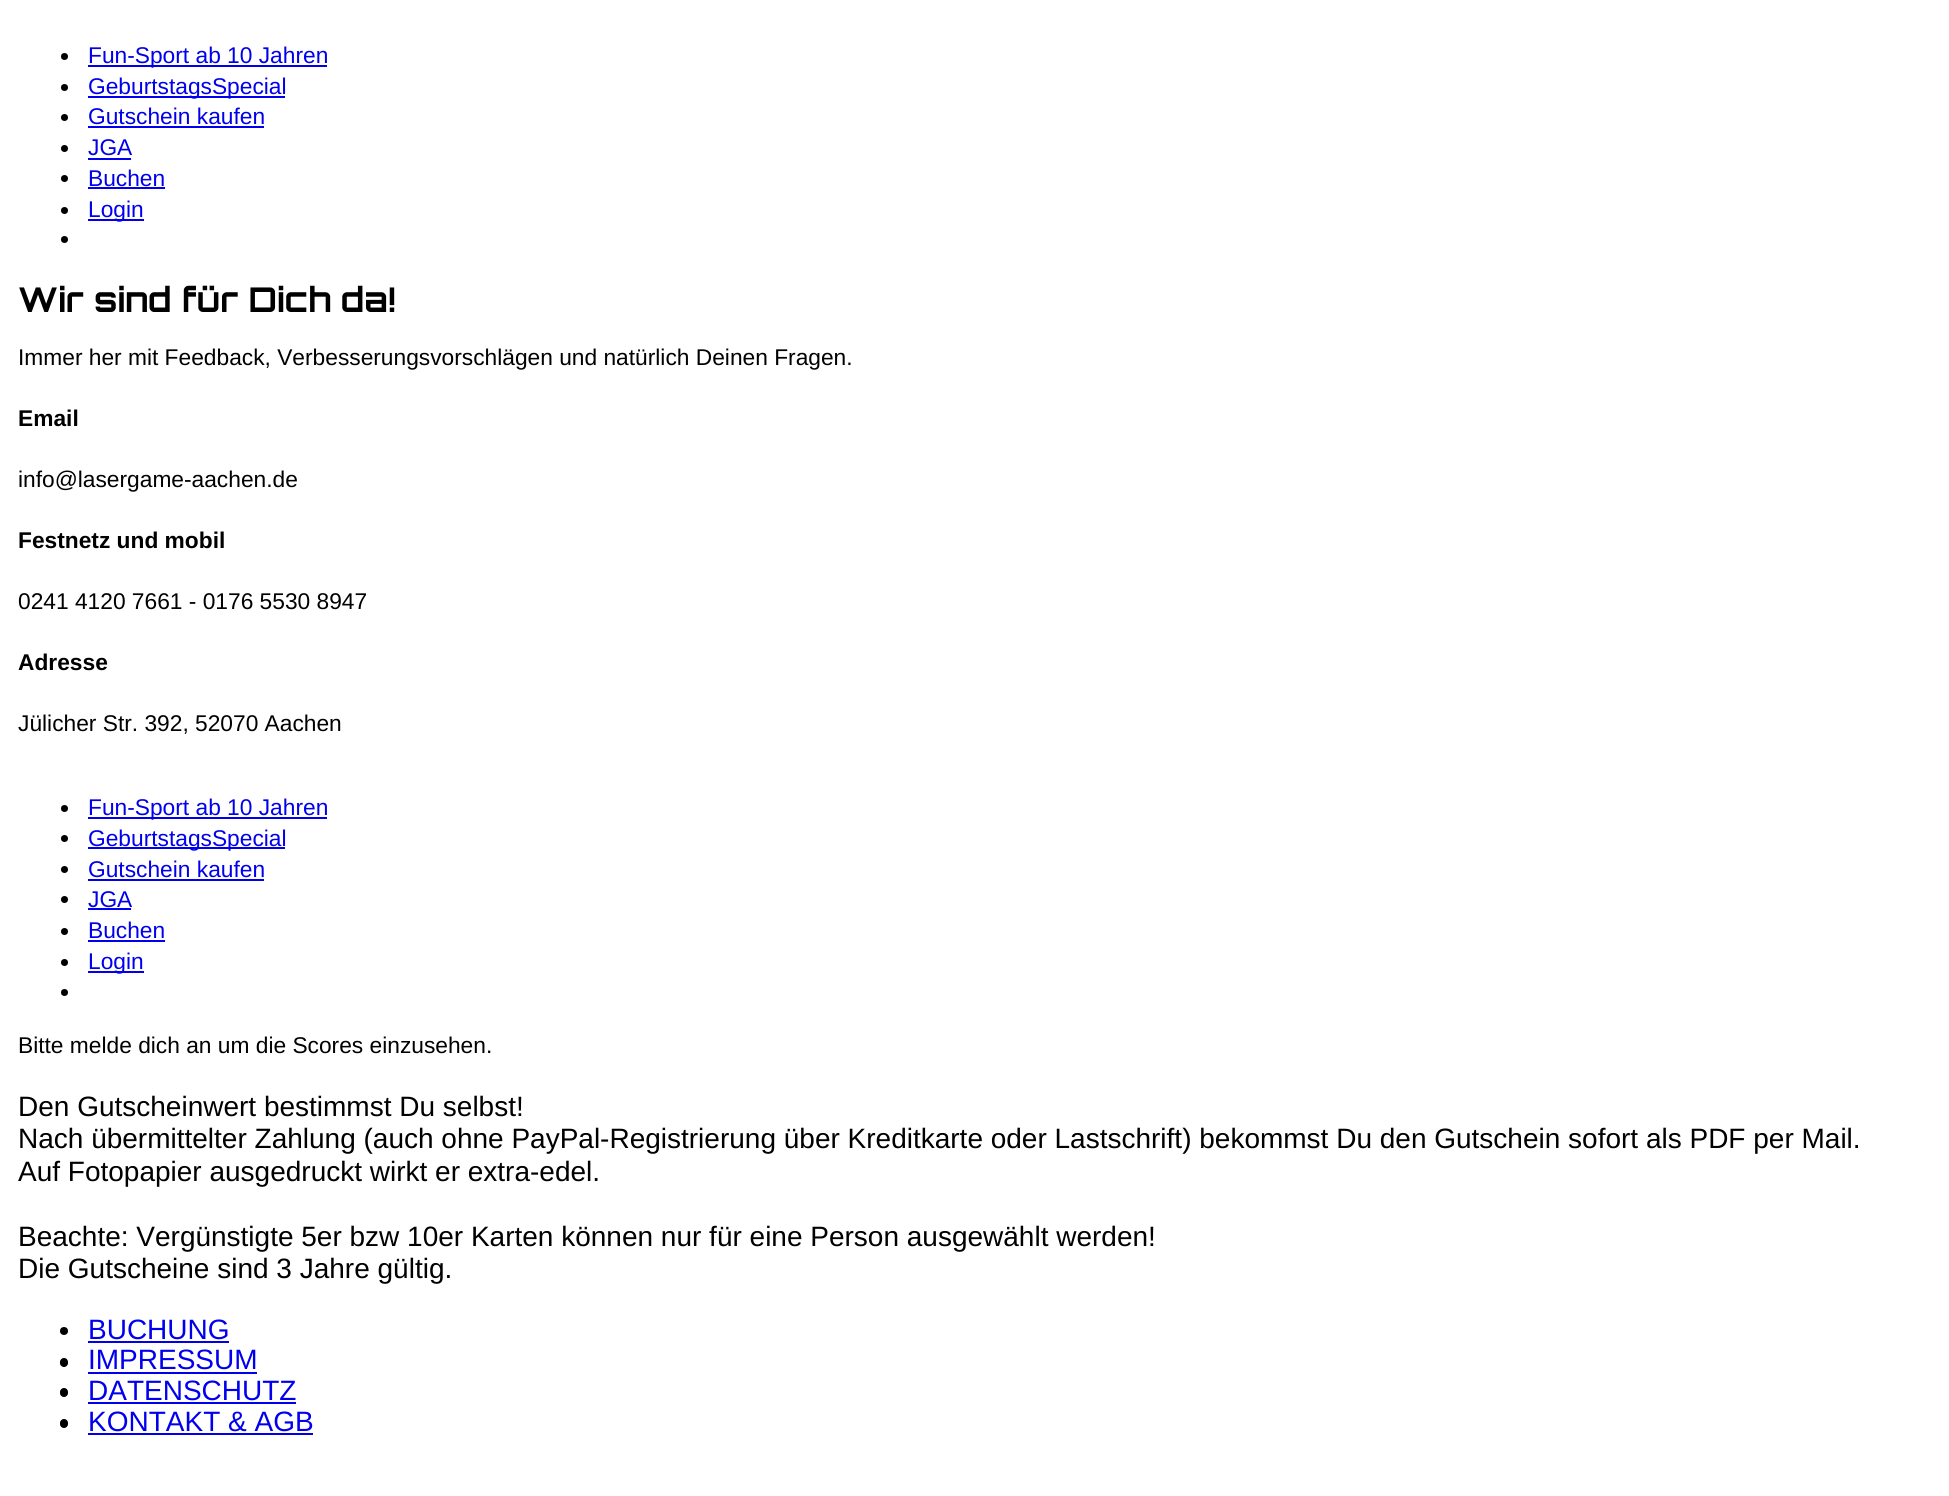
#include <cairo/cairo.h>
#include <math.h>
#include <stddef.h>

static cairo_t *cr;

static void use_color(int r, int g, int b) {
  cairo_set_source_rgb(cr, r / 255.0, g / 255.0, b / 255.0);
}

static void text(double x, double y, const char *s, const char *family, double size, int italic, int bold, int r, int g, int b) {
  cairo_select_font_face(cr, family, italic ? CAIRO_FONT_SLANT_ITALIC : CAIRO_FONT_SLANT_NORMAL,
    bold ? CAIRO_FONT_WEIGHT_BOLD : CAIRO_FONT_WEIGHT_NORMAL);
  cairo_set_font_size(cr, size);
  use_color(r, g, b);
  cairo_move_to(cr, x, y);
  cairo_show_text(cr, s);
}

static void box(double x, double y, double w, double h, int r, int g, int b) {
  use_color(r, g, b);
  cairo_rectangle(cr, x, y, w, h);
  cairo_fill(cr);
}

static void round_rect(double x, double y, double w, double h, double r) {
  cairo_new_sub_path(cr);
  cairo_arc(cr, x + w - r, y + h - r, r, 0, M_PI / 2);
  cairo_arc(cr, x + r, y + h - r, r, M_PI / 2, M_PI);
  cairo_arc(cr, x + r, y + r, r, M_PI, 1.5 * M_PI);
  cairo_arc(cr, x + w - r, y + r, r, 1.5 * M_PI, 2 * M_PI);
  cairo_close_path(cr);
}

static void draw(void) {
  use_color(255, 255, 255);
  cairo_paint(cr);
  use_color(0, 0, 0);
  cairo_arc(cr, 64.5, 56.5, 3.5, 0, 2 * M_PI);
  cairo_fill(cr);
  box(88, 65, 239, 2, 0, 0, 238);
  use_color(0, 0, 0);
  cairo_arc(cr, 64.5, 87.5, 3.5, 0, 2 * M_PI);
  cairo_fill(cr);
  box(88, 96, 197, 2, 0, 0, 238);
  use_color(0, 0, 0);
  cairo_arc(cr, 64.5, 117.5, 3.5, 0, 2 * M_PI);
  cairo_fill(cr);
  box(88, 126, 176, 2, 0, 0, 238);
  use_color(0, 0, 0);
  cairo_arc(cr, 64.5, 148.5, 3.5, 0, 2 * M_PI);
  cairo_fill(cr);
  box(88, 158, 43, 2, 0, 0, 238);
  use_color(0, 0, 0);
  cairo_arc(cr, 64.5, 178.5, 3.5, 0, 2 * M_PI);
  cairo_fill(cr);
  box(88, 187, 77, 2, 0, 0, 238);
  use_color(0, 0, 0);
  cairo_arc(cr, 64.5, 210.5, 3.5, 0, 2 * M_PI);
  cairo_fill(cr);
  box(88, 219, 56, 2, 0, 0, 238);
  use_color(0, 0, 0);
  cairo_arc(cr, 64.5, 239.5, 3.5, 0, 2 * M_PI);
  cairo_fill(cr);
  cairo_arc(cr, 64.5, 808.5, 3.5, 0, 2 * M_PI);
  cairo_fill(cr);
  box(88, 817, 239, 2, 0, 0, 238);
  use_color(0, 0, 0);
  cairo_arc(cr, 64.5, 838.5, 3.5, 0, 2 * M_PI);
  cairo_fill(cr);
  box(88, 847, 197, 2, 0, 0, 238);
  use_color(0, 0, 0);
  cairo_arc(cr, 64.5, 869.5, 3.5, 0, 2 * M_PI);
  cairo_fill(cr);
  box(88, 879, 176, 2, 0, 0, 238);
  use_color(0, 0, 0);
  cairo_arc(cr, 64.5, 899.5, 3.5, 0, 2 * M_PI);
  cairo_fill(cr);
  box(88, 908, 43, 2, 0, 0, 238);
  use_color(0, 0, 0);
  cairo_arc(cr, 64.5, 931.5, 3.5, 0, 2 * M_PI);
  cairo_fill(cr);
  box(88, 940, 77, 2, 0, 0, 238);
  use_color(0, 0, 0);
  cairo_arc(cr, 64.5, 962.5, 3.5, 0, 2 * M_PI);
  cairo_fill(cr);
  box(88, 971, 56, 2, 0, 0, 238);
  use_color(0, 0, 0);
  cairo_arc(cr, 64.5, 992.5, 3.5, 0, 2 * M_PI);
  cairo_fill(cr);
  cairo_arc(cr, 64, 1331, 4, 0, 2 * M_PI);
  cairo_fill(cr);
  box(88, 1341, 141, 2, 0, 0, 238);
  use_color(0, 0, 0);
  round_rect(60, 1358, 8, 9, 4);
  cairo_fill(cr);
  box(88, 1372, 169, 2, 0, 0, 238);
  use_color(0, 0, 0);
  round_rect(60, 1388, 8, 9, 4);
  cairo_fill(cr);
  box(88, 1402, 208, 2, 0, 0, 238);
  use_color(0, 0, 0);
  round_rect(60, 1419, 8, 9, 4);
  cairo_fill(cr);
  box(88, 1433, 225, 2, 0, 0, 238);
  text(88, 63, "Fun-Sport ab 10 Jahren", "Liberation Sans", 22.75, 0, 0, 0, 0, 238);
  text(88, 94, "GeburtstagsSpecial", "Liberation Sans", 22.75, 0, 0, 0, 0, 238);
  text(88, 124, "Gutschein kaufen", "Liberation Sans", 22.75, 0, 0, 0, 0, 238);
  text(88, 155, "JGA", "Liberation Sans", 22.75, 0, 0, 0, 0, 238);
  text(88, 186, "Buchen", "Liberation Sans", 22.75, 0, 0, 0, 0, 238);
  text(88, 217, "Login", "Liberation Sans", 22.75, 0, 0, 0, 0, 238);
  text(18, 312, "Wir sind für Dich da!", "Orbitron", 34.1, 0, 1, 0, 0, 0);
  text(18, 365, "Immer her mit Feedback, Verbesserungsvorschlägen und natürlich Deinen Fragen.", "Liberation Sans", 22.75, 0, 0, 0, 0, 0);
  text(18, 426, "Email", "Liberation Sans", 22.75, 0, 1, 0, 0, 0);
  text(18, 487, "info@lasergame-aachen.de", "Liberation Sans", 22.75, 0, 0, 0, 0, 0);
  text(18, 548, "Festnetz und mobil", "Liberation Sans", 22.75, 0, 1, 0, 0, 0);
  text(18, 609, "0241 4120 7661 - 0176 5530 8947", "Liberation Sans", 22.75, 0, 0, 0, 0, 0);
  text(18, 670, "Adresse", "Liberation Sans", 22.75, 0, 1, 0, 0, 0);
  text(18, 731, "Jülicher Str. 392, 52070 Aachen", "Liberation Sans", 22.75, 0, 0, 0, 0, 0);
  text(88, 815, "Fun-Sport ab 10 Jahren", "Liberation Sans", 22.75, 0, 0, 0, 0, 238);
  text(88, 846, "GeburtstagsSpecial", "Liberation Sans", 22.75, 0, 0, 0, 0, 238);
  text(88, 877, "Gutschein kaufen", "Liberation Sans", 22.75, 0, 0, 0, 0, 238);
  text(88, 907, "JGA", "Liberation Sans", 22.75, 0, 0, 0, 0, 238);
  text(88, 938, "Buchen", "Liberation Sans", 22.75, 0, 0, 0, 0, 238);
  text(88, 969, "Login", "Liberation Sans", 22.75, 0, 0, 0, 0, 238);
  text(18, 1053, "Bitte melde dich an um die Scores einzusehen.", "Liberation Sans", 22.75, 0, 0, 0, 0, 0);
  text(18, 1116, "Den Gutscheinwert bestimmst Du selbst!", "Liberation Sans", 28, 0, 0, 0, 0, 0);
  text(18, 1148, "Nach übermittelter Zahlung (auch ohne PayPal-Registrierung über Kreditkarte oder Lastschrift) bekommst Du den Gutschein sofort als PDF per Mail.", "Liberation Sans", 28, 0, 0, 0, 0, 0);
  text(18, 1181, "Auf Fotopapier ausgedruckt wirkt er extra-edel.", "Liberation Sans", 28, 0, 0, 0, 0, 0);
  text(18, 1246, "Beachte: Vergünstigte 5er bzw 10er Karten können nur für eine Person ausgewählt werden!", "Liberation Sans", 28, 0, 0, 0, 0, 0);
  text(18, 1278, "Die Gutscheine sind 3 Jahre gültig.", "Liberation Sans", 28, 0, 0, 0, 0, 0);
  text(88, 1339, "BUCHUNG", "Liberation Sans", 28, 0, 0, 0, 0, 238);
  text(88, 1369, "IMPRESSUM", "Liberation Sans", 28, 0, 0, 0, 0, 238);
  text(88, 1400, "DATENSCHUTZ", "Liberation Sans", 28, 0, 0, 0, 0, 238);
  text(88, 1431, "KONTAKT & AGB", "Liberation Sans", 28, 0, 0, 0, 0, 238);
}

int main(void) {
  cairo_surface_t *surface = cairo_image_surface_create(CAIRO_FORMAT_RGB24, 1949, 1496);
  cr = cairo_create(surface);
  cairo_font_options_t *options = cairo_font_options_create();
  cairo_font_options_set_hint_metrics(options, CAIRO_HINT_METRICS_OFF);
  cairo_font_options_set_hint_style(options, CAIRO_HINT_STYLE_NONE);
  cairo_set_font_options(cr, options);
  cairo_set_miter_limit(cr, 4);
  draw();
  cairo_surface_write_to_png(surface, "out.png");
  cairo_font_options_destroy(options);
  cairo_destroy(cr);
  cairo_surface_destroy(surface);
  return 0;
}
